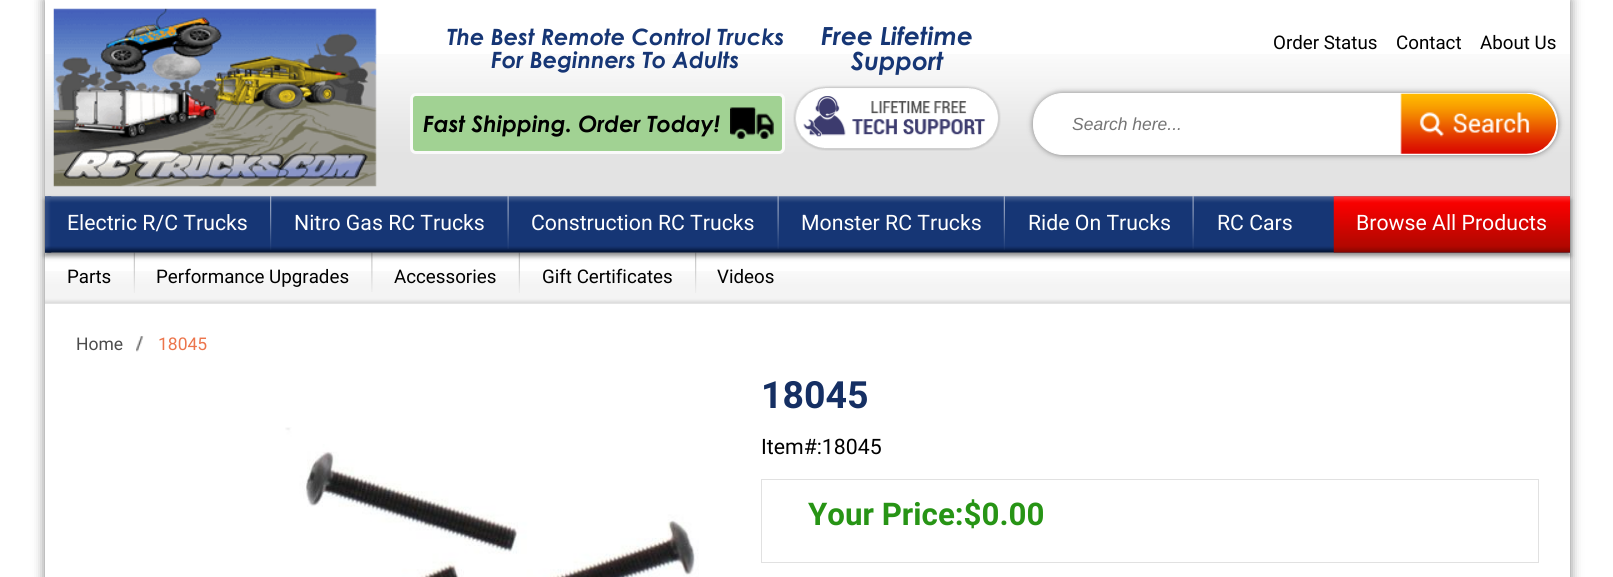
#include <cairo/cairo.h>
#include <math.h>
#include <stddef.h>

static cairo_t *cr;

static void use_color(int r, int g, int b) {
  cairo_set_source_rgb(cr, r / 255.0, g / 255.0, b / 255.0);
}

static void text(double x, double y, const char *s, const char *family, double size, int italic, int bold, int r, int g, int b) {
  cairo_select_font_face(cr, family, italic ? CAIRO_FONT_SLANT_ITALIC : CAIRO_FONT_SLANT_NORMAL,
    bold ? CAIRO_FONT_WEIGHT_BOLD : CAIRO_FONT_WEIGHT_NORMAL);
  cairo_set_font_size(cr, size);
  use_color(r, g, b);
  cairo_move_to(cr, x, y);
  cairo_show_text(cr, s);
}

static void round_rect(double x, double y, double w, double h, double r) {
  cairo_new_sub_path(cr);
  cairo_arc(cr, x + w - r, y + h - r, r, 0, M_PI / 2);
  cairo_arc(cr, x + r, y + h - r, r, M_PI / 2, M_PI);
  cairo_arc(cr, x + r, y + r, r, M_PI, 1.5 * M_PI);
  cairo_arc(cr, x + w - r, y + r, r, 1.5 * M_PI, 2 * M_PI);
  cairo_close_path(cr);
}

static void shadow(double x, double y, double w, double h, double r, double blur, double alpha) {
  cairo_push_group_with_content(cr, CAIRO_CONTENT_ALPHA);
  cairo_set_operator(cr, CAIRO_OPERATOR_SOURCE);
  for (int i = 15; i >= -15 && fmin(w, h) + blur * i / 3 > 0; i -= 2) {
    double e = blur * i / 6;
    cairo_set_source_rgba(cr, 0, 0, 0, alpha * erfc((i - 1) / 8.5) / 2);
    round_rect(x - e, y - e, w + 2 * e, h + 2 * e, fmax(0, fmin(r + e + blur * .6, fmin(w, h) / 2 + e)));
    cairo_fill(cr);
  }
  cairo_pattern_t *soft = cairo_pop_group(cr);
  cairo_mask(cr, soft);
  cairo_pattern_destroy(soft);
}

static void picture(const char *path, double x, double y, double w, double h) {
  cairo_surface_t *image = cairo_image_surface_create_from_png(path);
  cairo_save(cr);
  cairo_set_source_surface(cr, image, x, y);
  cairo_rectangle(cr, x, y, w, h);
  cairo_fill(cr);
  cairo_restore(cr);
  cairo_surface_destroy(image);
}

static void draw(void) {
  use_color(255, 255, 255);
  cairo_paint(cr);
  cairo_save(cr);
  cairo_set_fill_rule(cr, CAIRO_FILL_RULE_EVEN_ODD);
  cairo_new_path(cr);
  cairo_move_to(cr, 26, 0);
  cairo_line_to(cr, 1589, 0);
  cairo_line_to(cr, 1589, 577);
  cairo_line_to(cr, 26, 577);
  cairo_close_path(cr);
  cairo_move_to(cr, 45, 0);
  cairo_line_to(cr, 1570, 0);
  cairo_line_to(cr, 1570, 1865);
  cairo_line_to(cr, 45, 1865);
  cairo_close_path(cr);
  cairo_clip(cr);
  use_color(0, 0, 0);
  shadow(45, 0, 1525, 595, 0, 6, 0.5);
  cairo_restore(cr);
  picture("img_01.png", 45, 54, 1525, 143);
  picture("img_02.png", 53, 8, 324, 179);
  use_color(161, 210, 147);
  round_rect(411.5, 94.5, 372, 58, 4.5);
  cairo_fill_preserve(cr);
  use_color(250, 250, 250);
  cairo_set_line_width(cr, 3);
  cairo_stroke(cr);
  picture("img_03.png", 730, 107, 44, 32);
  picture("img_04.png", 793, 85, 208, 66);
  use_color(0, 0, 0);
  shadow(1033, 93, 525, 62, 30, 3, 0.48);
  use_color(255, 255, 255);
  round_rect(1033.5, 93.5, 524, 61, 29.5);
  cairo_fill_preserve(cr);
  cairo_set_line_width(cr, 1);
  cairo_stroke(cr);
  picture("img_05.png", 1400, 93, 157, 61);
  picture("img_13.png", 45, 271, 1525, 33);
  picture("img_14.png", 133, 252, 2, 41);
  picture("img_15.png", 371, 252, 2, 40);
  picture("img_14.png", 518, 252, 2, 41);
  picture("img_16.png", 695, 252, 2, 41);
  use_color(0, 0, 0);
  shadow(45, 200, 1525, 56, 0, 2.5, 0.47);
  picture("img_06.png", 45, 196, 1525, 57);
  picture("img_08.png", 45, 196, 3, 1);
  picture("img_07.png", 45, 196, 7, 57);
  picture("img_09.png", 270, 196, 2, 54);
  picture("img_10.png", 507, 196, 2, 53);
  picture("img_10.png", 777, 196, 2, 53);
  picture("img_11.png", 1003, 196, 2, 54);
  picture("img_10.png", 1192, 196, 2, 53);
  picture("img_12.png", 1333, 196, 237, 57);
  picture("img_17.png", 136, 336, 8, 16);
  picture("img_18.png", 285, 427, 414, 150);
  cairo_rectangle(cr, 761.5, 479.5, 777, 83);
  use_color(225, 225, 225);
  cairo_stroke(cr);
  text(447, 45, "The Best Remote Control Trucks", "Century Gothic", 22.5, 1, 1, 22, 54, 117);
  text(491, 68, "For Beginners To Adults", "Century Gothic", 22.5, 1, 1, 22, 54, 117);
  text(423, 132, "Fast Shipping. Order Today!", "Century Gothic", 22.5, 1, 1, 0, 0, 0);
  text(821, 45, "Free Lifetime", "Century Gothic", 25, 1, 1, 22, 54, 117);
  text(851, 70, "Support", "Century Gothic", 25, 1, 1, 22, 54, 117);
  text(1273, 49, "Order Status", "Roboto", 18.75, 0, 0, 0, 0, 0);
  text(1396, 49, "Contact", "Roboto", 18.75, 0, 0, 0, 0, 0);
  text(1480, 49, "About Us", "Roboto", 18.75, 0, 0, 0, 0, 0);
  text(1072, 130, "Search here...", "Liberation Sans", 17.5, 1, 0, 117, 117, 117);
  text(67, 230, "Electric R/C Trucks", "Roboto", 21.25, 0, 0, 255, 255, 255);
  text(294, 230, "Nitro Gas RC Trucks", "Roboto", 21.25, 0, 0, 255, 255, 255);
  text(531, 230, "Construction RC Trucks", "Roboto", 21.25, 0, 0, 255, 255, 255);
  text(801, 230, "Monster RC Trucks", "Roboto", 21.25, 0, 0, 255, 255, 255);
  text(1028, 230, "Ride On Trucks", "Roboto", 21.25, 0, 0, 255, 255, 255);
  text(1217, 230, "RC Cars", "Roboto", 21.25, 0, 0, 255, 255, 255);
  text(1356, 230, "Browse All Products", "Roboto", 21.25, 0, 0, 255, 255, 255);
  text(67, 283, "Parts", "Roboto", 18.75, 0, 0, 0, 0, 0);
  text(156, 283, "Performance Upgrades", "Roboto", 18.75, 0, 0, 0, 0, 0);
  text(394, 283, "Accessories", "Roboto", 18.75, 0, 0, 0, 0, 0);
  text(542, 283, "Gift Certificates", "Roboto", 18.75, 0, 0, 0, 0, 0);
  text(717, 283, "Videos", "Roboto", 18.75, 0, 0, 0, 0, 0);
  text(76, 350, "Home", "Roboto", 17.5, 0, 0, 76, 76, 76);
  text(158, 350, "18045", "Roboto", 17.5, 0, 0, 236, 117, 76);
  text(761, 408, "18045", "Roboto", 37.5, 0, 1, 21, 47, 99);
  text(761, 454, "Item#:18045", "Roboto", 21.25, 0, 0, 0, 0, 0);
  text(808, 525, "Your Price:$0.00", "Roboto", 31.25, 0, 1, 39, 148, 21);
}

int main(void) {
  cairo_surface_t *surface = cairo_image_surface_create(CAIRO_FORMAT_RGB24, 1613, 577);
  cr = cairo_create(surface);
  cairo_font_options_t *options = cairo_font_options_create();
  cairo_font_options_set_hint_metrics(options, CAIRO_HINT_METRICS_OFF);
  cairo_font_options_set_hint_style(options, CAIRO_HINT_STYLE_NONE);
  cairo_set_font_options(cr, options);
  cairo_set_miter_limit(cr, 4);
  draw();
  cairo_surface_write_to_png(surface, "out.png");
  cairo_font_options_destroy(options);
  cairo_destroy(cr);
  cairo_surface_destroy(surface);
  return 0;
}
